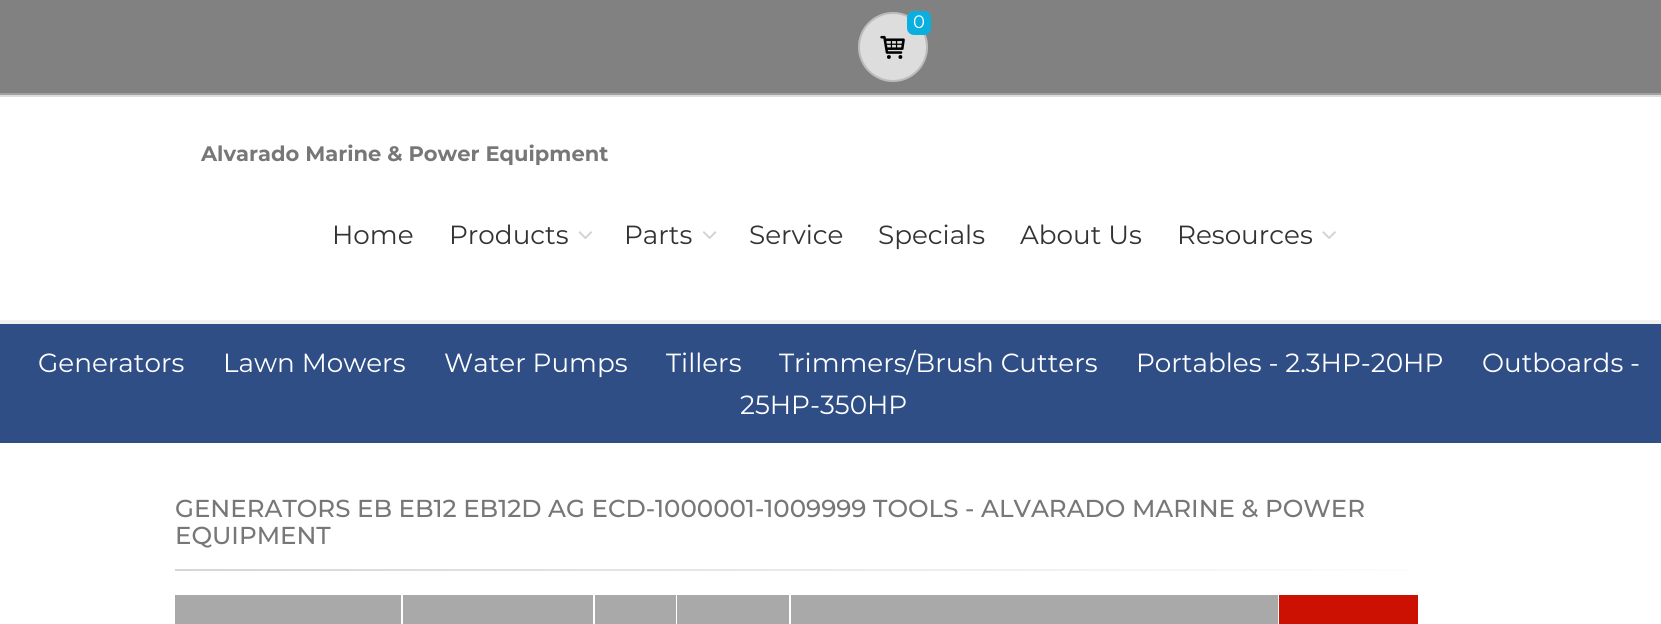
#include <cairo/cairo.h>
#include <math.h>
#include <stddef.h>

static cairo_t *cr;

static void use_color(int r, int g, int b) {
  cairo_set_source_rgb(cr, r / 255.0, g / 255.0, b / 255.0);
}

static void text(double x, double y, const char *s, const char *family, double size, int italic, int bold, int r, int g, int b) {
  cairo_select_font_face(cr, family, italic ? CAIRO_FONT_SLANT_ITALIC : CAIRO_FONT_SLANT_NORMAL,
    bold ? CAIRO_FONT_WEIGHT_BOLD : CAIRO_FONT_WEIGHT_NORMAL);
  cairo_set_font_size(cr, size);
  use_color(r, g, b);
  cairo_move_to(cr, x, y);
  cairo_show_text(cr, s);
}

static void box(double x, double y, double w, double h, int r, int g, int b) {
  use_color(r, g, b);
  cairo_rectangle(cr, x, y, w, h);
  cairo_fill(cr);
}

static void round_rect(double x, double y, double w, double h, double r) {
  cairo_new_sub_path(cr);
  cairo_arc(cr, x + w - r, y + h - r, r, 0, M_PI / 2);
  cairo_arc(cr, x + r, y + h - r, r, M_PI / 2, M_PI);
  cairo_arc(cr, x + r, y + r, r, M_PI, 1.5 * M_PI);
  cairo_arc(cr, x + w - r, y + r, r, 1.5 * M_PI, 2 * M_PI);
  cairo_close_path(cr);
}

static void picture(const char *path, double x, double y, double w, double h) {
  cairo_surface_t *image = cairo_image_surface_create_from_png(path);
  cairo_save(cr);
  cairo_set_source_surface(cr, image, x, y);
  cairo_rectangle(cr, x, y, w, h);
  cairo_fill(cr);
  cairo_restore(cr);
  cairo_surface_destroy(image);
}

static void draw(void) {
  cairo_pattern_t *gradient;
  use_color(255, 255, 255);
  cairo_paint(cr);
  box(0, 0, 1661, 93, 129, 129, 129);
  box(0, 93, 1661, 2, 161, 161, 161);
  use_color(221, 221, 221);
  cairo_arc(cr, 893, 47, 35, 0, 2 * M_PI);
  cairo_fill(cr);
  cairo_arc(cr, 893, 47, 34, 0, 2 * M_PI);
  cairo_set_source_rgba(cr, 0, 0, 0, 0.15);
  cairo_stroke(cr);
  use_color(9, 175, 223);
  round_rect(907, 11, 24, 24, 7);
  cairo_fill(cr);
  picture("img_01.png", 880, 35, 25, 24);
  box(0, 95, 1661, 2, 221, 221, 221);
  box(0, 320, 1661, 4, 241, 241, 241);
  picture("img_02.png", 578, 231, 14, 8);
  picture("img_03.png", 703, 231, 14, 8);
  picture("img_04.png", 1322, 231, 14, 8);
  box(0, 324, 1661, 119, 47, 78, 134);
  gradient = cairo_pattern_create_linear(175, 570, 1488, 570);
  cairo_pattern_add_color_stop_rgba(gradient, 0, 0.839, 0.839, 0.839, 1);
  cairo_pattern_add_color_stop_rgba(gradient, 1, 1, 1, 1, 1);
  cairo_set_source(cr, gradient);
  cairo_pattern_destroy(gradient);
  cairo_rectangle(cr, 175, 569, 1233, 2);
  cairo_fill(cr);
  box(175, 595, 226, 29, 169, 169, 169);
  box(403, 595, 190, 29, 169, 169, 169);
  box(595, 595, 81, 29, 169, 169, 169);
  box(677, 595, 112, 29, 169, 169, 169);
  box(791, 595, 487, 29, 169, 169, 169);
  box(1279, 595, 139, 29, 204, 16, 1);
  text(913, 28, "0", "Montserrat", 18, 0, 0, 255, 255, 255);
  text(201, 161, "Alvarado Marine & Power Equipment", "Montserrat", 21, 0, 1, 119, 119, 119);
  text(332, 244, "Home", "Montserrat", 26.25, 0, 0, 51, 51, 51);
  text(449, 244, "Products", "Montserrat", 26.25, 0, 0, 51, 51, 51);
  text(624, 244, "Parts", "Montserrat", 26.25, 0, 0, 51, 51, 51);
  text(749, 244, "Service", "Montserrat", 26.25, 0, 0, 51, 51, 51);
  text(878, 244, "Specials", "Montserrat", 26.25, 0, 0, 51, 51, 51);
  text(1020, 244, "About Us", "Montserrat", 26.25, 0, 0, 51, 51, 51);
  text(1177, 244, "Resources", "Montserrat", 26.25, 0, 0, 51, 51, 51);
  text(38, 372, "Generators", "Montserrat", 26.25, 0, 0, 255, 255, 255);
  text(223, 372, "Lawn Mowers", "Montserrat", 26.25, 0, 0, 255, 255, 255);
  text(444, 372, "Water Pumps", "Montserrat", 26.25, 0, 0, 255, 255, 255);
  text(666, 372, "Tillers", "Montserrat", 26.25, 0, 0, 255, 255, 255);
  text(779, 372, "Trimmers/Brush Cutters", "Montserrat", 26.25, 0, 0, 255, 255, 255);
  text(1136, 372, "Portables - 2.3HP-20HP", "Montserrat", 26.25, 0, 0, 255, 255, 255);
  text(1482, 372, "Outboards -", "Montserrat", 26.25, 0, 0, 255, 255, 255);
  text(740, 414, "25HP-350HP", "Montserrat", 26.25, 0, 0, 255, 255, 255);
  text(175, 517, "GENERATORS EB EB12 EB12D AG ECD-1000001-1009999 TOOLS - ALVARADO MARINE & POWER", "Montserrat Medium", 24.5, 0, 0, 119, 119, 119);
  text(175, 544, "EQUIPMENT", "Montserrat Medium", 24.5, 0, 0, 119, 119, 119);
}

int main(void) {
  cairo_surface_t *surface = cairo_image_surface_create(CAIRO_FORMAT_RGB24, 1661, 624);
  cr = cairo_create(surface);
  cairo_font_options_t *options = cairo_font_options_create();
  cairo_font_options_set_hint_metrics(options, CAIRO_HINT_METRICS_OFF);
  cairo_font_options_set_hint_style(options, CAIRO_HINT_STYLE_NONE);
  cairo_set_font_options(cr, options);
  cairo_set_miter_limit(cr, 4);
  draw();
  cairo_surface_write_to_png(surface, "out.png");
  cairo_font_options_destroy(options);
  cairo_destroy(cr);
  cairo_surface_destroy(surface);
  return 0;
}
